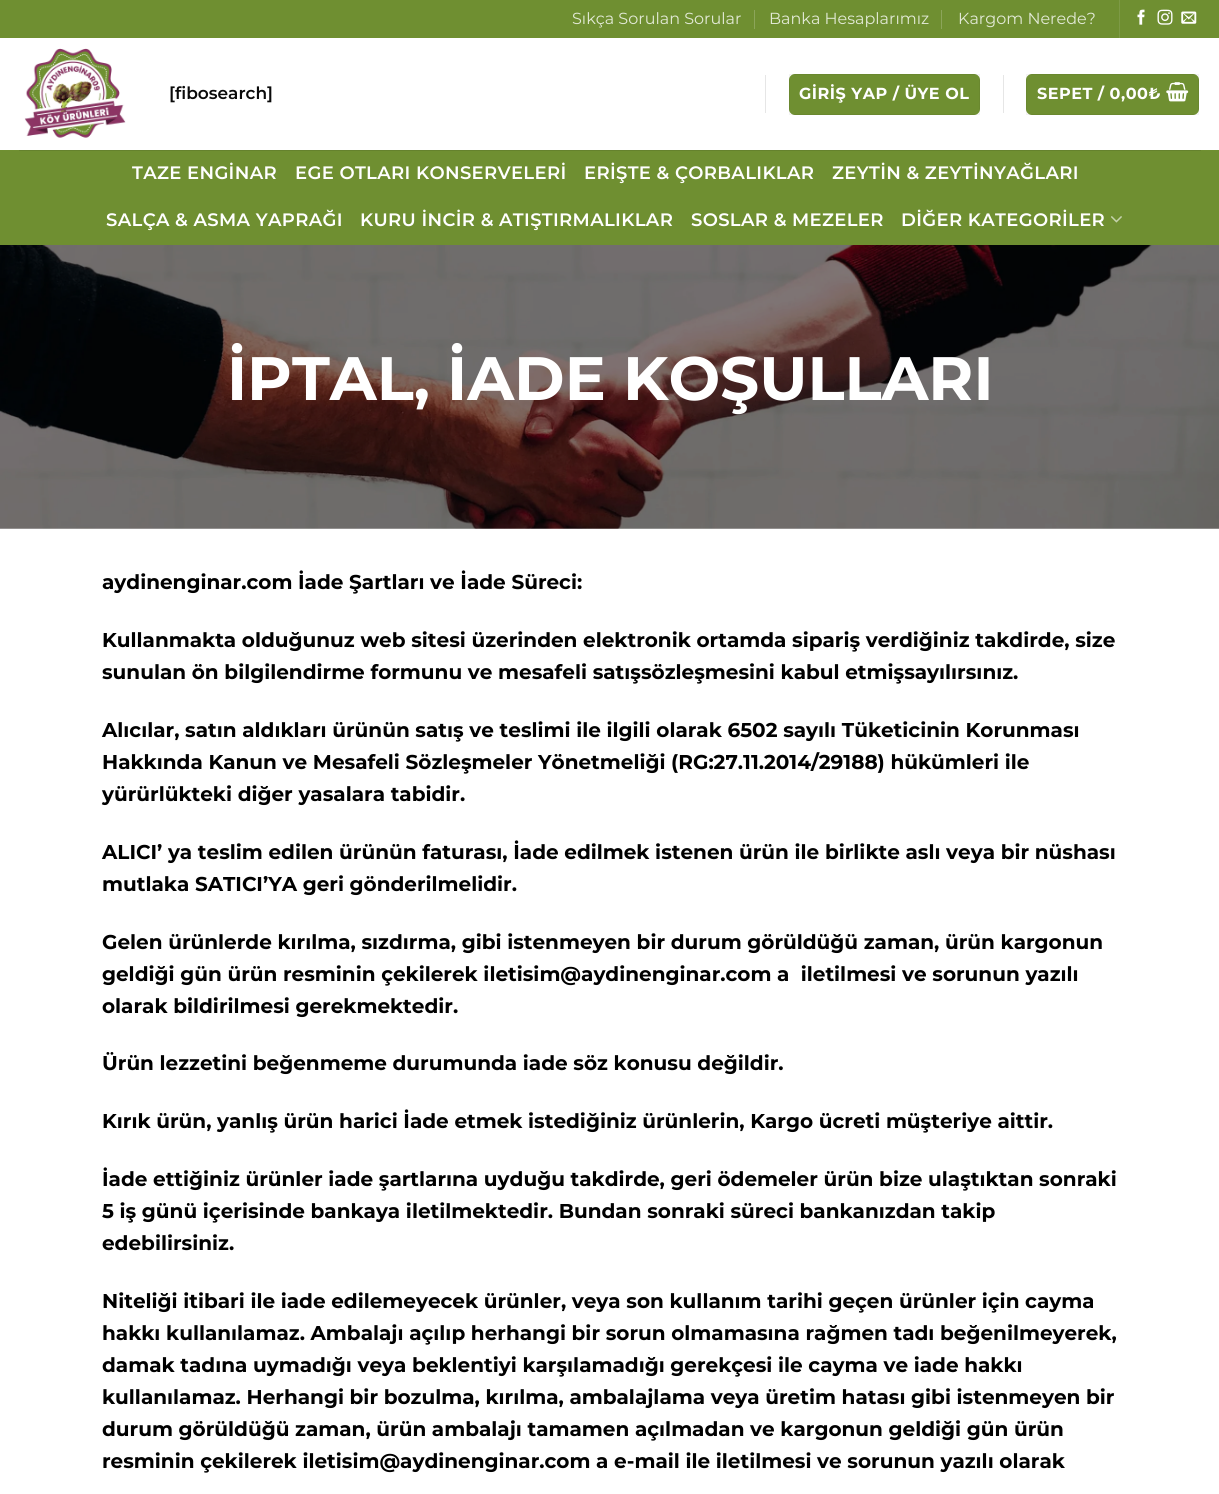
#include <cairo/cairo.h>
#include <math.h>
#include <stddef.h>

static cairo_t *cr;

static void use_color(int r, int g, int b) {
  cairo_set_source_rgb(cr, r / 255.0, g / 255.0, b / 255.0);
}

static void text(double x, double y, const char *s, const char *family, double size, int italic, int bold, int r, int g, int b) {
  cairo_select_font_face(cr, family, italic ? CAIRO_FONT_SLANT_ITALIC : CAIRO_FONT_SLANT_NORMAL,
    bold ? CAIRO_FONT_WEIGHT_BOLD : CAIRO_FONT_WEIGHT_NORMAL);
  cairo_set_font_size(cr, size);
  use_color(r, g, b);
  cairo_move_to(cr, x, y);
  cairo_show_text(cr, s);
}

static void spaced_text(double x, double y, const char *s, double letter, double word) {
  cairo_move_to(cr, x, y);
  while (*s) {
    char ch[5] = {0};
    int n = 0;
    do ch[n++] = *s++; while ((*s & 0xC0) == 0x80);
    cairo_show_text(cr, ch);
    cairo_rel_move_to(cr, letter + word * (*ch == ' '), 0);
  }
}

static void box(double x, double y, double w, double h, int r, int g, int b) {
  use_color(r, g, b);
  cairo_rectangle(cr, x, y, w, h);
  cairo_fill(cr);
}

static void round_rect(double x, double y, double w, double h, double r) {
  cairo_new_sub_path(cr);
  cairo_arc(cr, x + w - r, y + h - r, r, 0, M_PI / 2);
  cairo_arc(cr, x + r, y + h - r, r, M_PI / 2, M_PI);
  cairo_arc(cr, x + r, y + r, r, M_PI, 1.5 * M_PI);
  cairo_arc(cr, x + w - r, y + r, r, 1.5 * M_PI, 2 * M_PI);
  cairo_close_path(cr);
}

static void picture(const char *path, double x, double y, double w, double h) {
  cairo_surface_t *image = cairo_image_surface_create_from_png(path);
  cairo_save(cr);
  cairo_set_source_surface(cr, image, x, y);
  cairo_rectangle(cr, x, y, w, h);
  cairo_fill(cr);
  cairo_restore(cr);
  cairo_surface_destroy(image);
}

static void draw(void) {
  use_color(255, 255, 255);
  cairo_paint(cr);
  box(0, 0, 1219, 38, 111, 143, 49);
  box(754, 10, 1, 19, 140, 165, 90);
  box(941, 10, 1, 19, 140, 165, 90);
  box(1119, 0, 1, 38, 125, 154, 70);
  picture("img_01.png", 1137, 9, 8, 16);
  picture("img_02.png", 1157, 9, 16, 16);
  picture("img_03.png", 1181, 11, 16, 13);
  picture("img_04.png", 24, 48, 102, 90);
  box(765, 75, 1, 38, 230, 230, 230);
  use_color(111, 143, 49);
  round_rect(789, 74, 191, 41, 6);
  cairo_fill(cr);
  cairo_rectangle(cr, 789.5, 74.5, 190, 40);
  cairo_set_source_rgba(cr, 0, 0, 0, 0.05);
  cairo_set_line_width(cr, 1);
  cairo_stroke(cr);
  box(1003, 75, 1, 38, 230, 230, 230);
  use_color(111, 143, 49);
  round_rect(1026, 74, 173, 41, 6);
  cairo_fill(cr);
  cairo_rectangle(cr, 1026.5, 74.5, 172, 40);
  cairo_set_source_rgba(cr, 0, 0, 0, 0.05);
  cairo_stroke(cr);
  picture("img_05.png", 1166, 82, 23, 20);
  box(0, 150, 1219, 95, 111, 143, 49);
  box(19, 150, 1182, 1, 101, 130, 45);
  picture("img_06.png", 1111, 216, 11, 7);
  picture("img_07.png", 0, 245, 1219, 284);
  text(572, 24, "Sıkça Sorulan Sorular", "Montserrat", 16, 0, 0, 226, 233, 214);
  text(769, 24, "Banka Hesaplarımız", "Montserrat", 16, 0, 0, 226, 233, 214);
  text(958, 24, "Kargom Nerede?", "Montserrat", 16, 0, 0, 226, 233, 214);
  text(169, 99, "[fibosearch]", "Montserrat SemiBold", 17, 0, 0, 10, 10, 10);
  cairo_select_font_face(cr, "Montserrat", CAIRO_FONT_SLANT_NORMAL, CAIRO_FONT_WEIGHT_BOLD);
  cairo_set_font_size(cr, 16);
  use_color(255, 255, 255);
  spaced_text(799, 99, "GİRİŞ YAP / ÜYE OL", 0.5, 0);
  spaced_text(1037, 99, "SEPET / 0,00₺", 0.5, 0);
  cairo_select_font_face(cr, "Montserrat SemiBold", CAIRO_FONT_SLANT_NORMAL, CAIRO_FONT_WEIGHT_NORMAL);
  cairo_set_font_size(cr, 18);
  spaced_text(132, 179, "TAZE ENGİNAR", 0.35, 0);
  spaced_text(295, 179, "EGE OTLARI KONSERVELERİ", 0.35, 0);
  spaced_text(584, 179, "ERİŞTE & ÇORBALIKLAR", 0.35, 0);
  spaced_text(832, 179, "ZEYTİN & ZEYTİNYAĞLARI", 0.35, 0);
  spaced_text(106, 226, "SALÇA & ASMA YAPRAĞI", 0.35, 0);
  spaced_text(360, 226, "KURU İNCİR & ATIŞTIRMALIKLAR", 0.35, 0);
  spaced_text(691, 226, "SOSLAR & MEZELER", 0.35, 0);
  spaced_text(901, 226, "DİĞER KATEGORİLER", 0.35, 0);
  text(227, 400, "İPTAL, İADE KOŞULLARI", "Montserrat", 61.25, 0, 1, 255, 255, 255);
  text(102, 589, "aydinenginar.com İade Şartları ve İade Süreci:", "Montserrat", 20, 0, 1, 0, 0, 0);
  text(102, 647, "Kullanmakta olduğunuz web sitesi üzerinden elektronik ortamda sipariş verdiğiniz takdirde, size", "Montserrat", 20, 0, 1, 0, 0, 0);
  text(102, 679, "sunulan ön bilgilendirme formunu ve mesafeli satışsözleşmesini kabul etmişsayılırsınız.", "Montserrat", 20, 0, 1, 0, 0, 0);
  text(102, 737, "Alıcılar, satın aldıkları ürünün satış ve teslimi ile ilgili olarak 6502 sayılı Tüketicinin Korunması", "Montserrat", 20, 0, 1, 0, 0, 0);
  text(102, 769, "Hakkında Kanun ve Mesafeli Sözleşmeler Yönetmeliği (RG:27.11.2014/29188) hükümleri ile", "Montserrat", 20, 0, 1, 0, 0, 0);
  text(102, 801, "yürürlükteki diğer yasalara tabidir.", "Montserrat", 20, 0, 1, 0, 0, 0);
  text(102, 859, "ALICI’ ya teslim edilen ürünün faturası, İade edilmek istenen ürün ile birlikte aslı veya bir nüshası", "Montserrat", 20, 0, 1, 0, 0, 0);
  text(102, 891, "mutlaka SATICI’YA geri gönderilmelidir.", "Montserrat", 20, 0, 1, 0, 0, 0);
  text(102, 949, "Gelen ürünlerde kırılma, sızdırma, gibi istenmeyen bir durum görüldüğü zaman, ürün kargonun", "Montserrat", 20, 0, 1, 0, 0, 0);
  text(102, 981, "geldiği gün ürün resminin çekilerek iletisim@aydinenginar.com a  iletilmesi ve sorunun yazılı", "Montserrat", 20, 0, 1, 0, 0, 0);
  text(102, 1013, "olarak bildirilmesi gerekmektedir.", "Montserrat", 20, 0, 1, 0, 0, 0);
  text(102, 1070, "Ürün lezzetini beğenmeme durumunda iade söz konusu değildir.", "Montserrat", 20, 0, 1, 0, 0, 0);
  text(102, 1128, "Kırık ürün, yanlış ürün harici İade etmek istediğiniz ürünlerin, Kargo ücreti müşteriye aittir.", "Montserrat", 20, 0, 1, 0, 0, 0);
  text(102, 1186, "İade ettiğiniz ürünler iade şartlarına uyduğu takdirde, geri ödemeler ürün bize ulaştıktan sonraki", "Montserrat", 20, 0, 1, 0, 0, 0);
  text(102, 1218, "5 iş günü içerisinde bankaya iletilmektedir. Bundan sonraki süreci bankanızdan takip", "Montserrat", 20, 0, 1, 0, 0, 0);
  text(102, 1250, "edebilirsiniz.", "Montserrat", 20, 0, 1, 0, 0, 0);
  text(102, 1308, "Niteliği itibari ile iade edilemeyecek ürünler, veya son kullanım tarihi geçen ürünler için cayma", "Montserrat", 20, 0, 1, 0, 0, 0);
  text(102, 1340, "hakkı kullanılamaz. Ambalajı açılıp herhangi bir sorun olmamasına rağmen tadı beğenilmeyerek,", "Montserrat", 20, 0, 1, 0, 0, 0);
  text(102, 1372, "damak tadına uymadığı veya beklentiyi karşılamadığı gerekçesi ile cayma ve iade hakkı", "Montserrat", 20, 0, 1, 0, 0, 0);
  text(102, 1404, "kullanılamaz. Herhangi bir bozulma, kırılma, ambalajlama veya üretim hatası gibi istenmeyen bir", "Montserrat", 20, 0, 1, 0, 0, 0);
  text(102, 1436, "durum görüldüğü zaman, ürün ambalajı tamamen açılmadan ve kargonun geldiği gün ürün", "Montserrat", 20, 0, 1, 0, 0, 0);
  text(102, 1468, "resminin çekilerek iletisim@aydinenginar.com a e-mail ile iletilmesi ve sorunun yazılı olarak", "Montserrat", 20, 0, 1, 0, 0, 0);
}

int main(void) {
  cairo_surface_t *surface = cairo_image_surface_create(CAIRO_FORMAT_RGB24, 1219, 1494);
  cr = cairo_create(surface);
  cairo_font_options_t *options = cairo_font_options_create();
  cairo_font_options_set_hint_metrics(options, CAIRO_HINT_METRICS_OFF);
  cairo_font_options_set_hint_style(options, CAIRO_HINT_STYLE_NONE);
  cairo_set_font_options(cr, options);
  cairo_set_miter_limit(cr, 4);
  draw();
  cairo_surface_write_to_png(surface, "out.png");
  cairo_font_options_destroy(options);
  cairo_destroy(cr);
  cairo_surface_destroy(surface);
  return 0;
}
